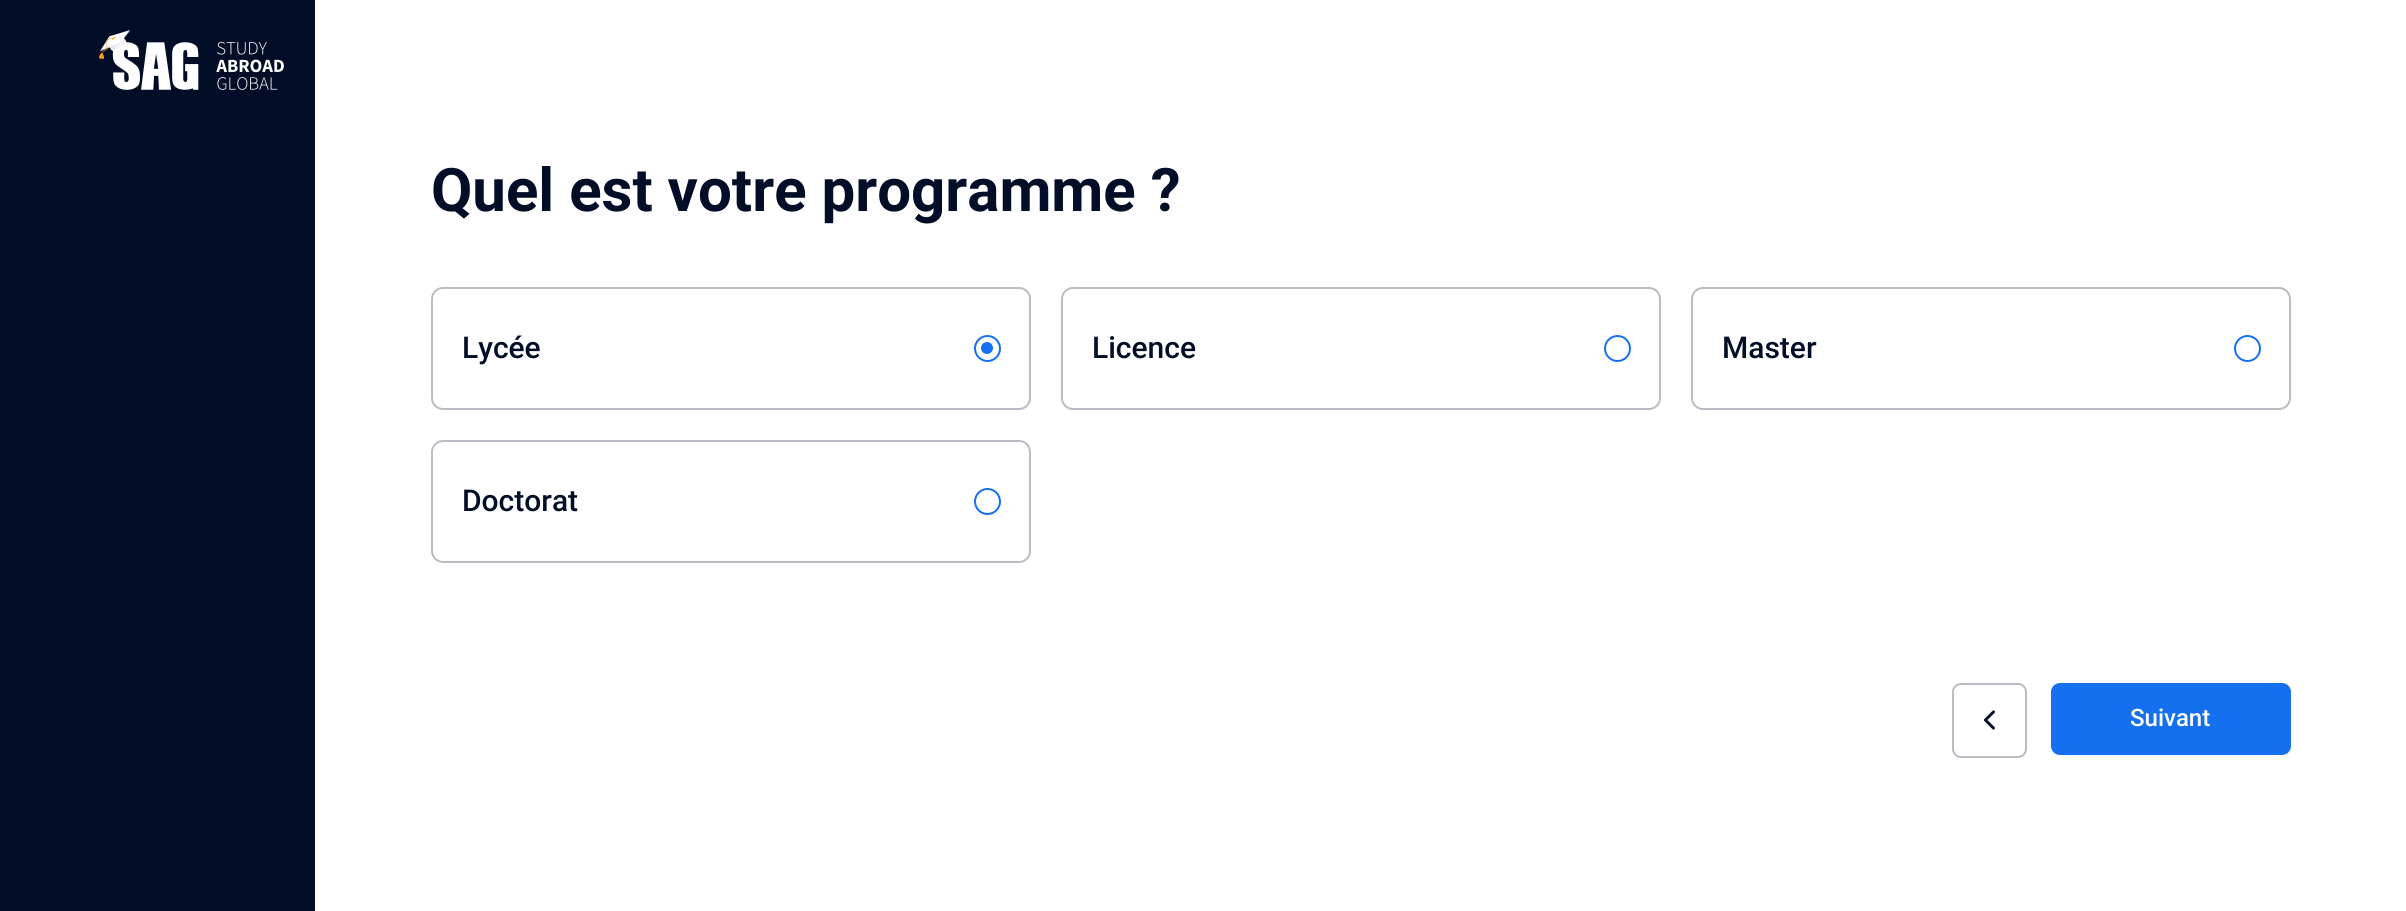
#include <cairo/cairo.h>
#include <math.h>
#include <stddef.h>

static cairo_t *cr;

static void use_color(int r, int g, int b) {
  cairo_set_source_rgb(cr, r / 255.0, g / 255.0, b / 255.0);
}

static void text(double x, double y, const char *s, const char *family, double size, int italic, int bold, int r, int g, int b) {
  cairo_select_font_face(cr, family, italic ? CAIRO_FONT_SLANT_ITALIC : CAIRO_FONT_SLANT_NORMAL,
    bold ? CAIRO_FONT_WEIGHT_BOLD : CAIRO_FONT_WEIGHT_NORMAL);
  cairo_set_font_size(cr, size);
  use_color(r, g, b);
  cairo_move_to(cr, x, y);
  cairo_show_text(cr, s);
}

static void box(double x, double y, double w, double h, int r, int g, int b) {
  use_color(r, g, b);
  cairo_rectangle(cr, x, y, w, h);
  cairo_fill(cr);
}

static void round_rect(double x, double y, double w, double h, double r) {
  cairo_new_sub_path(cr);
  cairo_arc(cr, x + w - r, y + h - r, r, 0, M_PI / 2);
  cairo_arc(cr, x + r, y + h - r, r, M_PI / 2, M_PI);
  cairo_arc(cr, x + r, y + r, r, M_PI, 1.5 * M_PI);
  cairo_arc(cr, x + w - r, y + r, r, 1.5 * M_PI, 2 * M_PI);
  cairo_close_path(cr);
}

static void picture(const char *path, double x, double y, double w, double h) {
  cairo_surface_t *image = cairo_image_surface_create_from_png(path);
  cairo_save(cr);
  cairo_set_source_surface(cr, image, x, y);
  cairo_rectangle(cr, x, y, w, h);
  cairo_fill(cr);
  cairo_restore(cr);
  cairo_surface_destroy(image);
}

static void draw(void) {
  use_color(255, 255, 255);
  cairo_paint(cr);
  box(0, 0, 315, 911, 2, 14, 39);
  picture("img_01.png", 99, 30, 185, 60);
  round_rect(432, 288, 598, 121, 11);
  use_color(185, 188, 194);
  cairo_stroke(cr);
  use_color(21, 112, 239);
  cairo_arc(cr, 987, 348, 6, 0, 2 * M_PI);
  cairo_fill(cr);
  cairo_arc(cr, 987.5, 348.5, 12.5, 0, 2 * M_PI);
  cairo_stroke(cr);
  round_rect(1062, 288, 598, 121, 11);
  use_color(185, 188, 194);
  cairo_stroke(cr);
  cairo_arc(cr, 1617.5, 348.5, 12.5, 0, 2 * M_PI);
  use_color(21, 112, 239);
  cairo_stroke(cr);
  round_rect(1692, 288, 598, 121, 11);
  use_color(185, 188, 194);
  cairo_stroke(cr);
  cairo_arc(cr, 2247.5, 348.5, 12.5, 0, 2 * M_PI);
  use_color(21, 112, 239);
  cairo_stroke(cr);
  round_rect(432, 441, 598, 121, 11);
  use_color(185, 188, 194);
  cairo_stroke(cr);
  cairo_arc(cr, 987.5, 501.5, 12.5, 0, 2 * M_PI);
  use_color(21, 112, 239);
  cairo_stroke(cr);
  round_rect(1953, 684, 73, 73, 8);
  use_color(185, 188, 194);
  cairo_stroke(cr);
  picture("img_02.png", 1984, 710, 11, 20);
  use_color(21, 112, 239);
  round_rect(2051, 683, 240, 72, 9);
  cairo_fill(cr);
  text(431, 211, "Quel est votre programme ?", "Roboto", 60, 0, 1, 2, 14, 39);
  text(462, 358, "Lycée", "Roboto Medium", 30, 0, 0, 2, 14, 39);
  text(1092, 358, "Licence", "Roboto Medium", 30, 0, 0, 2, 14, 39);
  text(1722, 358, "Master", "Roboto Medium", 30, 0, 0, 2, 14, 39);
  text(462, 511, "Doctorat", "Roboto Medium", 30, 0, 0, 2, 14, 39);
  text(2130, 726, "Suivant", "Roboto Medium", 24, 0, 0, 255, 255, 255);
}

int main(void) {
  cairo_surface_t *surface = cairo_image_surface_create(CAIRO_FORMAT_RGB24, 2406, 911);
  cr = cairo_create(surface);
  cairo_font_options_t *options = cairo_font_options_create();
  cairo_font_options_set_hint_metrics(options, CAIRO_HINT_METRICS_OFF);
  cairo_font_options_set_hint_style(options, CAIRO_HINT_STYLE_NONE);
  cairo_set_font_options(cr, options);
  cairo_set_miter_limit(cr, 4);
  draw();
  cairo_surface_write_to_png(surface, "out.png");
  cairo_font_options_destroy(options);
  cairo_destroy(cr);
  cairo_surface_destroy(surface);
  return 0;
}
